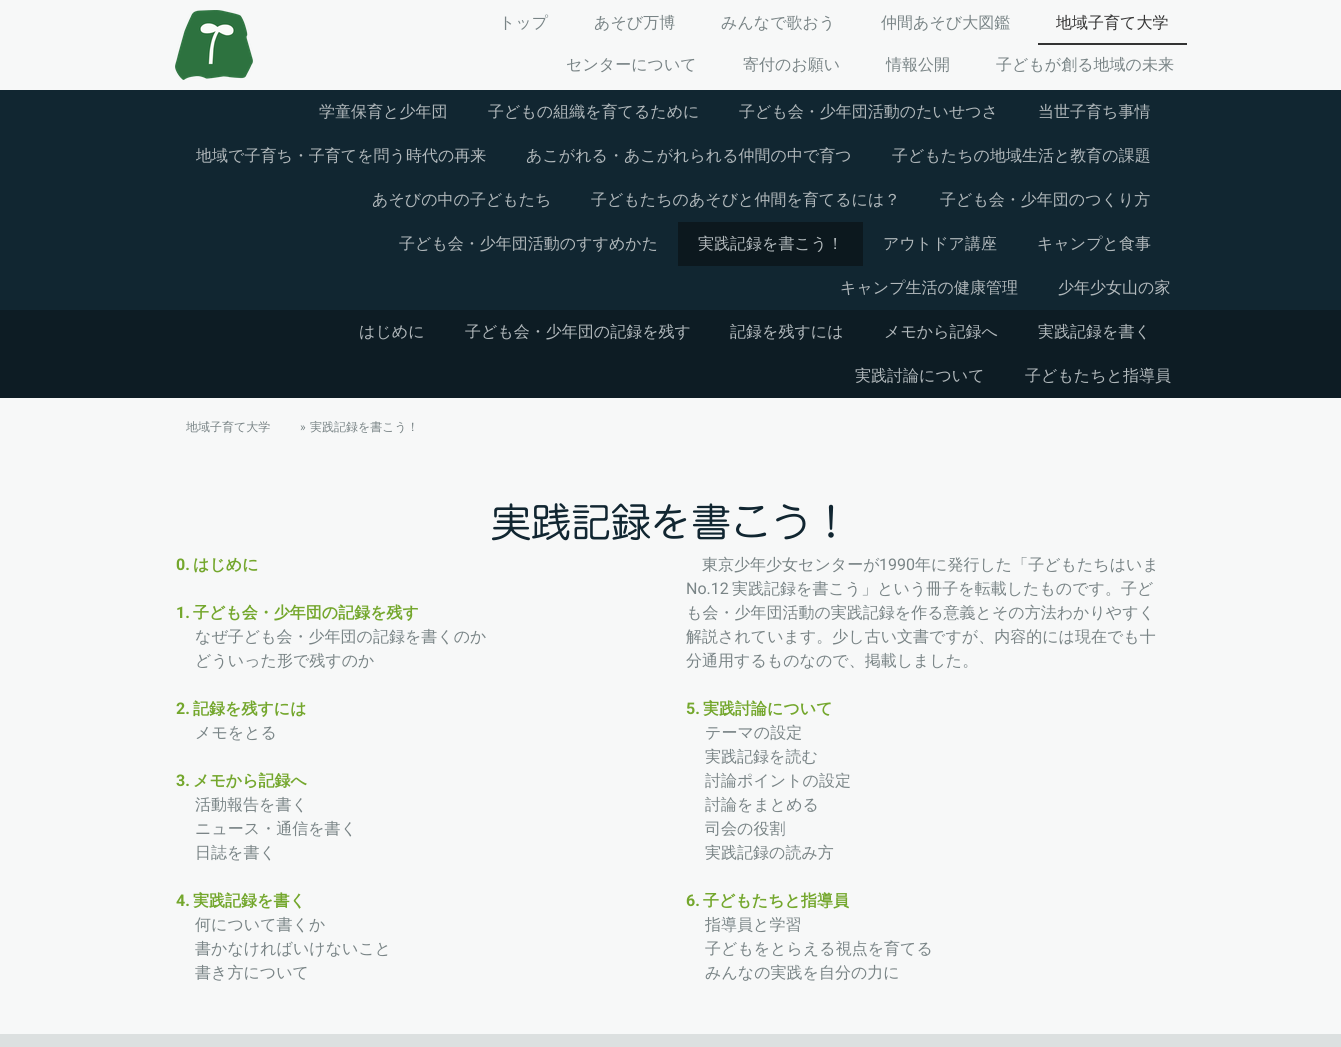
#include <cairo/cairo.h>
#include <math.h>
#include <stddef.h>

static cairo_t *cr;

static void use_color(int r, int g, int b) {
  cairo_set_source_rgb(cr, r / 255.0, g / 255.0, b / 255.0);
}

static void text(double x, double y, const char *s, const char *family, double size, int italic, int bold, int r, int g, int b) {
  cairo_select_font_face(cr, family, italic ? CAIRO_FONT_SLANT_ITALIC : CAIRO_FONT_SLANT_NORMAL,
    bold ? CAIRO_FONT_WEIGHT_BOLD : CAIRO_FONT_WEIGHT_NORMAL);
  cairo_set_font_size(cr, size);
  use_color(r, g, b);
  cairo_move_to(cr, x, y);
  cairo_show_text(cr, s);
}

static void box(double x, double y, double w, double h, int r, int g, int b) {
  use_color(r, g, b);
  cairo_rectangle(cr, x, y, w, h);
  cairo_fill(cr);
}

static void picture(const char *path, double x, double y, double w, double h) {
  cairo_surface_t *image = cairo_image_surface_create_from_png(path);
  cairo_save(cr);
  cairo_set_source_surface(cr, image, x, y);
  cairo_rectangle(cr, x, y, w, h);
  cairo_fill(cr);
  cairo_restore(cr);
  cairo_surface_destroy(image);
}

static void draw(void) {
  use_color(247, 248, 248);
  cairo_paint(cr);
  picture("img_01.png", 175, 10, 78, 70);
  box(1038, 43, 149, 2, 51, 51, 51);
  box(0, 90, 1341, 220, 17, 38, 49);
  box(678, 222, 185, 44, 12, 24, 30);
  box(0, 310, 1341, 88, 13, 28, 36);
  box(0, 1034, 1341, 13, 220, 224, 224);
  text(499, 28, "トップ", "WenQuanYi Zen Hei Medium", 16, 0, 0, 121, 132, 134);
  text(594, 28, "あそび万博", "WenQuanYi Zen Hei Medium", 16, 0, 0, 121, 132, 134);
  text(721, 28, "みんなで歌おう", "WenQuanYi Zen Hei Medium", 16, 0, 0, 121, 132, 134);
  text(881, 28, "仲間あそび大図鑑", "WenQuanYi Zen Hei Medium", 16, 0, 0, 121, 132, 134);
  text(1056, 28, "地域子育て大学", "WenQuanYi Zen Hei Medium", 16, 0, 0, 51, 51, 51);
  text(566, 70, "センターについて", "WenQuanYi Zen Hei Medium", 16, 0, 0, 121, 132, 134);
  text(743, 70, "寄付のお願い", "WenQuanYi Zen Hei Medium", 16, 0, 0, 121, 132, 134);
  text(886, 70, "情報公開", "WenQuanYi Zen Hei Medium", 16, 0, 0, 121, 132, 134);
  text(996, 70, "子どもが創る地域の未来", "WenQuanYi Zen Hei Medium", 16, 0, 0, 121, 132, 134);
  text(319, 117, "学童保育と少年団", "WenQuanYi Zen Hei Medium", 16, 0, 0, 178, 185, 188);
  text(488, 117, "子どもの組織を育てるために", "WenQuanYi Zen Hei Medium", 16, 0, 0, 178, 185, 188);
  text(739, 117, "子ども会・少年団活動のたいせつさ", "WenQuanYi Zen Hei Medium", 16, 0, 0, 178, 185, 188);
  text(1038, 117, "当世子育ち事情", "WenQuanYi Zen Hei Medium", 16, 0, 0, 178, 185, 188);
  text(196, 161, "地域で子育ち・子育てを問う時代の再来", "WenQuanYi Zen Hei Medium", 16, 0, 0, 178, 185, 188);
  text(526, 161, "あこがれる・あこがれられる仲間の中で育つ", "WenQuanYi Zen Hei Medium", 16, 0, 0, 178, 185, 188);
  text(892, 161, "子どもたちの地域生活と教育の課題", "WenQuanYi Zen Hei Medium", 16, 0, 0, 178, 185, 188);
  text(372, 205, "あそびの中の子どもたち", "WenQuanYi Zen Hei Medium", 16, 0, 0, 178, 185, 188);
  text(591, 205, "子どもたちのあそびと仲間を育てるには？", "WenQuanYi Zen Hei Medium", 16, 0, 0, 178, 185, 188);
  text(940, 205, "子ども会・少年団のつくり方", "WenQuanYi Zen Hei Medium", 16, 0, 0, 178, 185, 188);
  text(399, 249, "子ども会・少年団活動のすすめかた", "WenQuanYi Zen Hei Medium", 16, 0, 0, 178, 185, 188);
  text(698, 249, "実践記録を書こう！", "WenQuanYi Zen Hei Medium", 16, 0, 0, 178, 185, 188);
  text(883, 249, "アウトドア講座", "WenQuanYi Zen Hei Medium", 16, 0, 0, 178, 185, 188);
  text(1037, 249, "キャンプと食事", "WenQuanYi Zen Hei Medium", 16, 0, 0, 178, 185, 188);
  text(840, 293, "キャンプ生活の健康管理", "WenQuanYi Zen Hei Medium", 16, 0, 0, 178, 185, 188);
  text(1058, 293, "少年少女山の家", "WenQuanYi Zen Hei Medium", 16, 0, 0, 178, 185, 188);
  text(359, 337, "はじめに", "WenQuanYi Zen Hei Medium", 16, 0, 0, 178, 185, 188);
  text(465, 337, "子ども会・少年団の記録を残す", "WenQuanYi Zen Hei Medium", 16, 0, 0, 178, 185, 188);
  text(730, 337, "記録を残すには", "WenQuanYi Zen Hei Medium", 16, 0, 0, 178, 185, 188);
  text(884, 337, "メモから記録へ", "WenQuanYi Zen Hei Medium", 16, 0, 0, 178, 185, 188);
  text(1038, 337, "実践記録を書く", "WenQuanYi Zen Hei Medium", 16, 0, 0, 178, 185, 188);
  text(855, 381, "実践討論について", "WenQuanYi Zen Hei Medium", 16, 0, 0, 178, 185, 188);
  text(1025, 381, "子どもたちと指導員", "WenQuanYi Zen Hei Medium", 16, 0, 0, 178, 185, 188);
  text(186, 431, "地域子育て大学", "WenQuanYi Zen Hei Medium", 12, 0, 0, 121, 132, 134);
  text(300, 431, "»", "Roboto", 12, 0, 0, 121, 132, 134);
  text(310, 431, "実践記録を書こう！", "WenQuanYi Zen Hei Medium", 12, 0, 0, 121, 132, 134);
  text(491, 537, "実践記録を書こう！", "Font", 40, 0, 0, 17, 38, 49);
  text(176, 570, "0.", "Roboto", 16, 0, 1, 116, 167, 45);
  text(193, 570, "はじめに", "WenQuanYi Zen Hei", 16, 0, 1, 116, 167, 45);
  text(176, 618, "1.", "Roboto", 16, 0, 1, 116, 167, 45);
  text(193, 618, "子ども会・少年団の記録を残す", "WenQuanYi Zen Hei", 16, 0, 1, 116, 167, 45);
  text(195, 642, "なぜ子ども会・少年団の記録を書くのか", "WenQuanYi Zen Hei Medium", 16, 0, 0, 121, 132, 134);
  text(195, 666, "どういった形で残すのか", "WenQuanYi Zen Hei Medium", 16, 0, 0, 121, 132, 134);
  text(176, 714, "2.", "Roboto", 16, 0, 1, 116, 167, 45);
  text(193, 714, "記録を残すには", "WenQuanYi Zen Hei", 16, 0, 1, 116, 167, 45);
  text(195, 738, "メモをとる", "WenQuanYi Zen Hei Medium", 16, 0, 0, 121, 132, 134);
  text(176, 786, "3.", "Roboto", 16, 0, 1, 116, 167, 45);
  text(193, 786, "メモから記録へ", "WenQuanYi Zen Hei", 16, 0, 1, 116, 167, 45);
  text(195, 810, "活動報告を書く", "WenQuanYi Zen Hei Medium", 16, 0, 0, 121, 132, 134);
  text(195, 834, "ニュース・通信を書く", "WenQuanYi Zen Hei Medium", 16, 0, 0, 121, 132, 134);
  text(195, 858, "日誌を書く", "WenQuanYi Zen Hei Medium", 16, 0, 0, 121, 132, 134);
  text(176, 906, "4.", "Roboto", 16, 0, 1, 116, 167, 45);
  text(193, 906, "実践記録を書く", "WenQuanYi Zen Hei", 16, 0, 1, 116, 167, 45);
  text(195, 930, "何について書くか", "WenQuanYi Zen Hei Medium", 16, 0, 0, 121, 132, 134);
  text(195, 954, "書かなければいけないこと", "WenQuanYi Zen Hei Medium", 16, 0, 0, 121, 132, 134);
  text(195, 978, "書き方について", "WenQuanYi Zen Hei Medium", 16, 0, 0, 121, 132, 134);
  text(702, 570, "東京少年少女センターが", "WenQuanYi Zen Hei Medium", 16, 0, 0, 121, 132, 134);
  text(879, 570, "1990", "Roboto", 16, 0, 0, 121, 132, 134);
  text(915, 570, "年に発行した「子どもたちはいま", "WenQuanYi Zen Hei Medium", 16, 0, 0, 121, 132, 134);
  text(686, 594, "No.12", "Roboto", 16, 0, 0, 121, 132, 134);
  text(732, 594, "実践記録を書こう」という冊子を転載したものです。子ど", "WenQuanYi Zen Hei Medium", 16, 0, 0, 121, 132, 134);
  text(686, 618, "も会・少年団活動の実践記録を作る意義とその方法わかりやすく", "WenQuanYi Zen Hei Medium", 16, 0, 0, 121, 132, 134);
  text(686, 642, "解説されています。少し古い文書ですが、内容的には現在でも十", "WenQuanYi Zen Hei Medium", 16, 0, 0, 121, 132, 134);
  text(686, 666, "分通用するものなので、掲載しました。", "WenQuanYi Zen Hei Medium", 16, 0, 0, 121, 132, 134);
  text(686, 714, "5.", "Roboto", 16, 0, 1, 116, 167, 45);
  text(703, 714, "実践討論について", "WenQuanYi Zen Hei", 16, 0, 1, 116, 167, 45);
  text(705, 738, "テーマの設定", "WenQuanYi Zen Hei Medium", 16, 0, 0, 121, 132, 134);
  text(705, 762, "実践記録を読む", "WenQuanYi Zen Hei Medium", 16, 0, 0, 121, 132, 134);
  text(705, 786, "討論ポイントの設定", "WenQuanYi Zen Hei Medium", 16, 0, 0, 121, 132, 134);
  text(705, 810, "討論をまとめる", "WenQuanYi Zen Hei Medium", 16, 0, 0, 121, 132, 134);
  text(705, 834, "司会の役割", "WenQuanYi Zen Hei Medium", 16, 0, 0, 121, 132, 134);
  text(705, 858, "実践記録の読み方", "WenQuanYi Zen Hei Medium", 16, 0, 0, 121, 132, 134);
  text(686, 906, "6.", "Roboto", 16, 0, 1, 116, 167, 45);
  text(703, 906, "子どもたちと指導員", "WenQuanYi Zen Hei", 16, 0, 1, 116, 167, 45);
  text(705, 930, "指導員と学習", "WenQuanYi Zen Hei Medium", 16, 0, 0, 121, 132, 134);
  text(705, 954, "子どもをとらえる視点を育てる", "WenQuanYi Zen Hei Medium", 16, 0, 0, 121, 132, 134);
  text(705, 978, "みんなの実践を自分の力に", "WenQuanYi Zen Hei Medium", 16, 0, 0, 121, 132, 134);
}

int main(void) {
  cairo_surface_t *surface = cairo_image_surface_create(CAIRO_FORMAT_RGB24, 1341, 1047);
  cr = cairo_create(surface);
  cairo_font_options_t *options = cairo_font_options_create();
  cairo_font_options_set_hint_metrics(options, CAIRO_HINT_METRICS_OFF);
  cairo_font_options_set_hint_style(options, CAIRO_HINT_STYLE_NONE);
  cairo_set_font_options(cr, options);
  cairo_set_miter_limit(cr, 4);
  draw();
  cairo_surface_write_to_png(surface, "out.png");
  cairo_font_options_destroy(options);
  cairo_destroy(cr);
  cairo_surface_destroy(surface);
  return 0;
}
